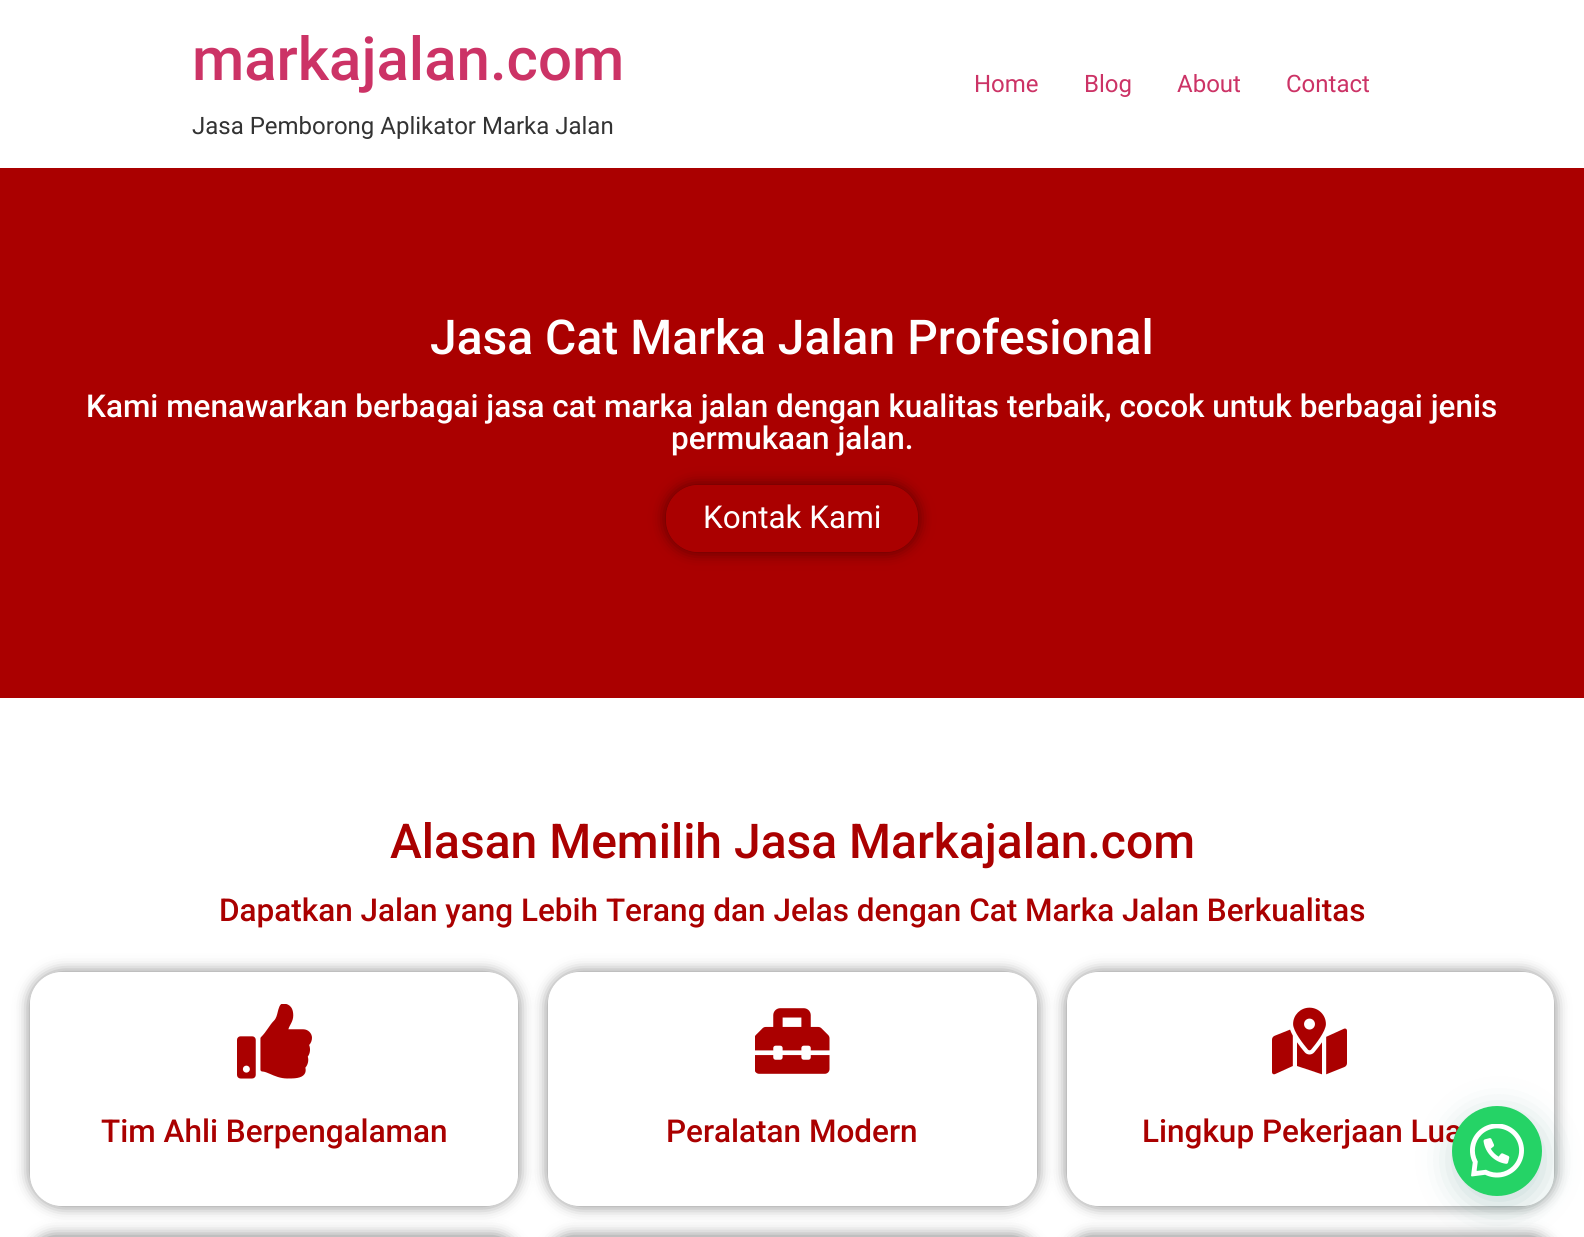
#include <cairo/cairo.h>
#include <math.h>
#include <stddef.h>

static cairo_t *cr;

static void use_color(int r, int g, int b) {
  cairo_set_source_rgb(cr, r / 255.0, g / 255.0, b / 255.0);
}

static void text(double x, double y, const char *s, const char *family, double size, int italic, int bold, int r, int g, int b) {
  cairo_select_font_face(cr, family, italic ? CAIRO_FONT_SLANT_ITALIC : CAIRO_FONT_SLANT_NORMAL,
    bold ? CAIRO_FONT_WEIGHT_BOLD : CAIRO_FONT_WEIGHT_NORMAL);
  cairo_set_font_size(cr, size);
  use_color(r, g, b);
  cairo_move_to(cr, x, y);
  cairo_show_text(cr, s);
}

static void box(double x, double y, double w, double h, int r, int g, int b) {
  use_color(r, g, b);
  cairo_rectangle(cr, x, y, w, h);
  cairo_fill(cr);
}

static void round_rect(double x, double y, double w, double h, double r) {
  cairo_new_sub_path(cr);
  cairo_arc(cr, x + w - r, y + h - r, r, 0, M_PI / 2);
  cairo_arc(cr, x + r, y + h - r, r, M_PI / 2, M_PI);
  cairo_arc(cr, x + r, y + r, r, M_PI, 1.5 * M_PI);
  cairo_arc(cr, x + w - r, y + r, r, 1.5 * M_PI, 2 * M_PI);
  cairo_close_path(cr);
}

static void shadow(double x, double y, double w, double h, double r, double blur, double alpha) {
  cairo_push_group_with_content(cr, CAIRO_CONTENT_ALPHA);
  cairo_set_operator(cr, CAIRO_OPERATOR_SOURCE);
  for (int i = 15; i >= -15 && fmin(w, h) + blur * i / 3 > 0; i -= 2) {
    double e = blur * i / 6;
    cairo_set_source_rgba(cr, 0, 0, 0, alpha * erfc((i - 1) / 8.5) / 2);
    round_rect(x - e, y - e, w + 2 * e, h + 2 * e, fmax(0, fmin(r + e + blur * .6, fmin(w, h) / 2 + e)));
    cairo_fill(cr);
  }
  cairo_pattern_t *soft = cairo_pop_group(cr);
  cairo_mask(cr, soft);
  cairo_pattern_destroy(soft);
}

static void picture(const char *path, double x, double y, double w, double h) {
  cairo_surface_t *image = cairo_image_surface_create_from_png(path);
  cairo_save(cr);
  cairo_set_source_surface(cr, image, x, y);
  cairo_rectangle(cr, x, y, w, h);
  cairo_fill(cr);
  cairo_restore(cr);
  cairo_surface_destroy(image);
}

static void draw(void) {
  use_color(255, 255, 255);
  cairo_paint(cr);
  box(0, 168, 1584, 530, 170, 0, 0);
  cairo_save(cr);
  cairo_set_fill_rule(cr, CAIRO_FILL_RULE_EVEN_ODD);
  cairo_new_path(cr);
  cairo_move_to(cr, 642, 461);
  cairo_line_to(cr, 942, 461);
  cairo_line_to(cr, 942, 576);
  cairo_line_to(cr, 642, 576);
  cairo_close_path(cr);
  cairo_move_to(cr, 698, 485);
  cairo_line_to(cr, 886, 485);
  cairo_curve_to(cr, 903.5, 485, 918, 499.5, 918, 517);
  cairo_line_to(cr, 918, 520);
  cairo_curve_to(cr, 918, 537.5, 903.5, 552, 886, 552);
  cairo_line_to(cr, 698, 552);
  cairo_curve_to(cr, 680.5, 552, 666, 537.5, 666, 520);
  cairo_line_to(cr, 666, 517);
  cairo_curve_to(cr, 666, 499.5, 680.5, 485, 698, 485);
  cairo_close_path(cr);
  cairo_clip(cr);
  use_color(0, 0, 0);
  shadow(666, 485, 252, 67, 32, 7.5, 0.5);
  cairo_restore(cr);
  cairo_save(cr);
  cairo_set_fill_rule(cr, CAIRO_FILL_RULE_EVEN_ODD);
  cairo_new_path(cr);
  cairo_move_to(cr, 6, 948);
  cairo_line_to(cr, 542, 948);
  cairo_line_to(cr, 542, 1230);
  cairo_line_to(cr, 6, 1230);
  cairo_close_path(cr);
  cairo_move_to(cr, 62, 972);
  cairo_line_to(cr, 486, 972);
  cairo_curve_to(cr, 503.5, 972, 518, 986.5, 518, 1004);
  cairo_line_to(cr, 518, 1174);
  cairo_curve_to(cr, 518, 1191.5, 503.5, 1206, 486, 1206);
  cairo_line_to(cr, 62, 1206);
  cairo_curve_to(cr, 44.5, 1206, 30, 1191.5, 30, 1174);
  cairo_line_to(cr, 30, 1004);
  cairo_curve_to(cr, 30, 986.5, 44.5, 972, 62, 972);
  cairo_close_path(cr);
  cairo_clip(cr);
  use_color(0, 0, 0);
  shadow(30, 972, 488, 234, 32, 7.5, 0.5);
  cairo_restore(cr);
  picture("img_01.png", 237, 1004, 75, 75);
  cairo_save(cr);
  cairo_set_fill_rule(cr, CAIRO_FILL_RULE_EVEN_ODD);
  cairo_new_path(cr);
  cairo_move_to(cr, 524, 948);
  cairo_line_to(cr, 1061, 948);
  cairo_line_to(cr, 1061, 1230);
  cairo_line_to(cr, 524, 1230);
  cairo_close_path(cr);
  cairo_move_to(cr, 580, 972);
  cairo_line_to(cr, 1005, 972);
  cairo_curve_to(cr, 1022.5, 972, 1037, 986.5, 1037, 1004);
  cairo_line_to(cr, 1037, 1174);
  cairo_curve_to(cr, 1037, 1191.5, 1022.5, 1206, 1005, 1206);
  cairo_line_to(cr, 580, 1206);
  cairo_curve_to(cr, 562.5, 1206, 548, 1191.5, 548, 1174);
  cairo_line_to(cr, 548, 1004);
  cairo_curve_to(cr, 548, 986.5, 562.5, 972, 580, 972);
  cairo_close_path(cr);
  cairo_clip(cr);
  use_color(0, 0, 0);
  shadow(548, 972, 489, 234, 32, 7.5, 0.5);
  cairo_restore(cr);
  picture("img_02.png", 755, 1008, 75, 66);
  cairo_save(cr);
  cairo_set_fill_rule(cr, CAIRO_FILL_RULE_EVEN_ODD);
  cairo_new_path(cr);
  cairo_move_to(cr, 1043, 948);
  cairo_line_to(cr, 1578, 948);
  cairo_line_to(cr, 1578, 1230);
  cairo_line_to(cr, 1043, 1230);
  cairo_close_path(cr);
  cairo_move_to(cr, 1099, 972);
  cairo_line_to(cr, 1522, 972);
  cairo_curve_to(cr, 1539.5, 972, 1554, 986.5, 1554, 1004);
  cairo_line_to(cr, 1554, 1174);
  cairo_curve_to(cr, 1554, 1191.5, 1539.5, 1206, 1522, 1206);
  cairo_line_to(cr, 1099, 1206);
  cairo_curve_to(cr, 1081.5, 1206, 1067, 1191.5, 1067, 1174);
  cairo_line_to(cr, 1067, 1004);
  cairo_curve_to(cr, 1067, 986.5, 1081.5, 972, 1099, 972);
  cairo_close_path(cr);
  cairo_clip(cr);
  use_color(0, 0, 0);
  shadow(1067, 972, 487, 234, 32, 7.5, 0.5);
  cairo_restore(cr);
  picture("img_03.png", 1272, 1007, 75, 68);
  use_color(0, 0, 0);
  shadow(30, 1236, 488, 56, 32, 7.5, 0.5);
  shadow(548, 1236, 489, 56, 32, 7.5, 0.5);
  shadow(1067, 1236, 487, 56, 32, 7.5, 0.5);
  use_color(7, 94, 84);
  shadow(1454, 1115, 90, 90, 45, 18, 0.24);
  text(192, 80, "markajalan.com", "Roboto Medium", 60, 0, 0, 204, 51, 102);
  text(192, 134, "Jasa Pemborong Aplikator Marka Jalan", "Roboto", 24, 0, 0, 51, 51, 51);
  text(974, 92, "Home", "Roboto", 24, 0, 0, 204, 51, 102);
  text(1084, 92, "Blog", "Roboto", 24, 0, 0, 204, 51, 102);
  text(1177, 92, "About", "Roboto", 24, 0, 0, 204, 51, 102);
  text(1286, 92, "Contact", "Roboto", 24, 0, 0, 204, 51, 102);
  text(430, 354, "Jasa Cat Marka Jalan Profesional", "Roboto Medium", 48, 0, 0, 255, 255, 255);
  text(86, 417, "Kami menawarkan berbagai jasa cat marka jalan dengan kualitas terbaik, cocok untuk berbagai jenis", "Roboto Medium", 31.5, 0, 0, 255, 255, 255);
  text(671, 449, "permukaan jalan.", "Roboto Medium", 31.5, 0, 0, 255, 255, 255);
  text(703, 528, "Kontak Kami", "Roboto", 31.5, 0, 0, 255, 255, 255);
  text(390, 858, "Alasan Memilih Jasa Markajalan.com", "Roboto Medium", 48, 0, 0, 170, 0, 0);
  text(219, 921, "Dapatkan Jalan yang Lebih Terang dan Jelas dengan Cat Marka Jalan Berkualitas", "Roboto Medium", 31.5, 0, 0, 170, 0, 0);
  text(101, 1142, "Tim Ahli Berpengalaman", "Roboto Medium", 31.5, 0, 0, 170, 0, 0);
  text(666, 1142, "Peralatan Modern", "Roboto Medium", 31.5, 0, 0, 170, 0, 0);
  text(1142, 1142, "Lingkup Pekerjaan Lua", "Roboto Medium", 31.5, 0, 0, 170, 0, 0);
  use_color(37, 211, 102);
  cairo_new_path(cr);
  cairo_arc(cr, 1497, 1151, 45, 0, 2 * M_PI);
  cairo_fill(cr);
  picture("img_04.png", 1470, 1124, 54, 54);
}

int main(void) {
  cairo_surface_t *surface = cairo_image_surface_create(CAIRO_FORMAT_RGB24, 1584, 1237);
  cr = cairo_create(surface);
  cairo_font_options_t *options = cairo_font_options_create();
  cairo_font_options_set_hint_metrics(options, CAIRO_HINT_METRICS_OFF);
  cairo_font_options_set_hint_style(options, CAIRO_HINT_STYLE_NONE);
  cairo_set_font_options(cr, options);
  cairo_set_miter_limit(cr, 4);
  draw();
  cairo_surface_write_to_png(surface, "out.png");
  cairo_font_options_destroy(options);
  cairo_destroy(cr);
  cairo_surface_destroy(surface);
  return 0;
}
